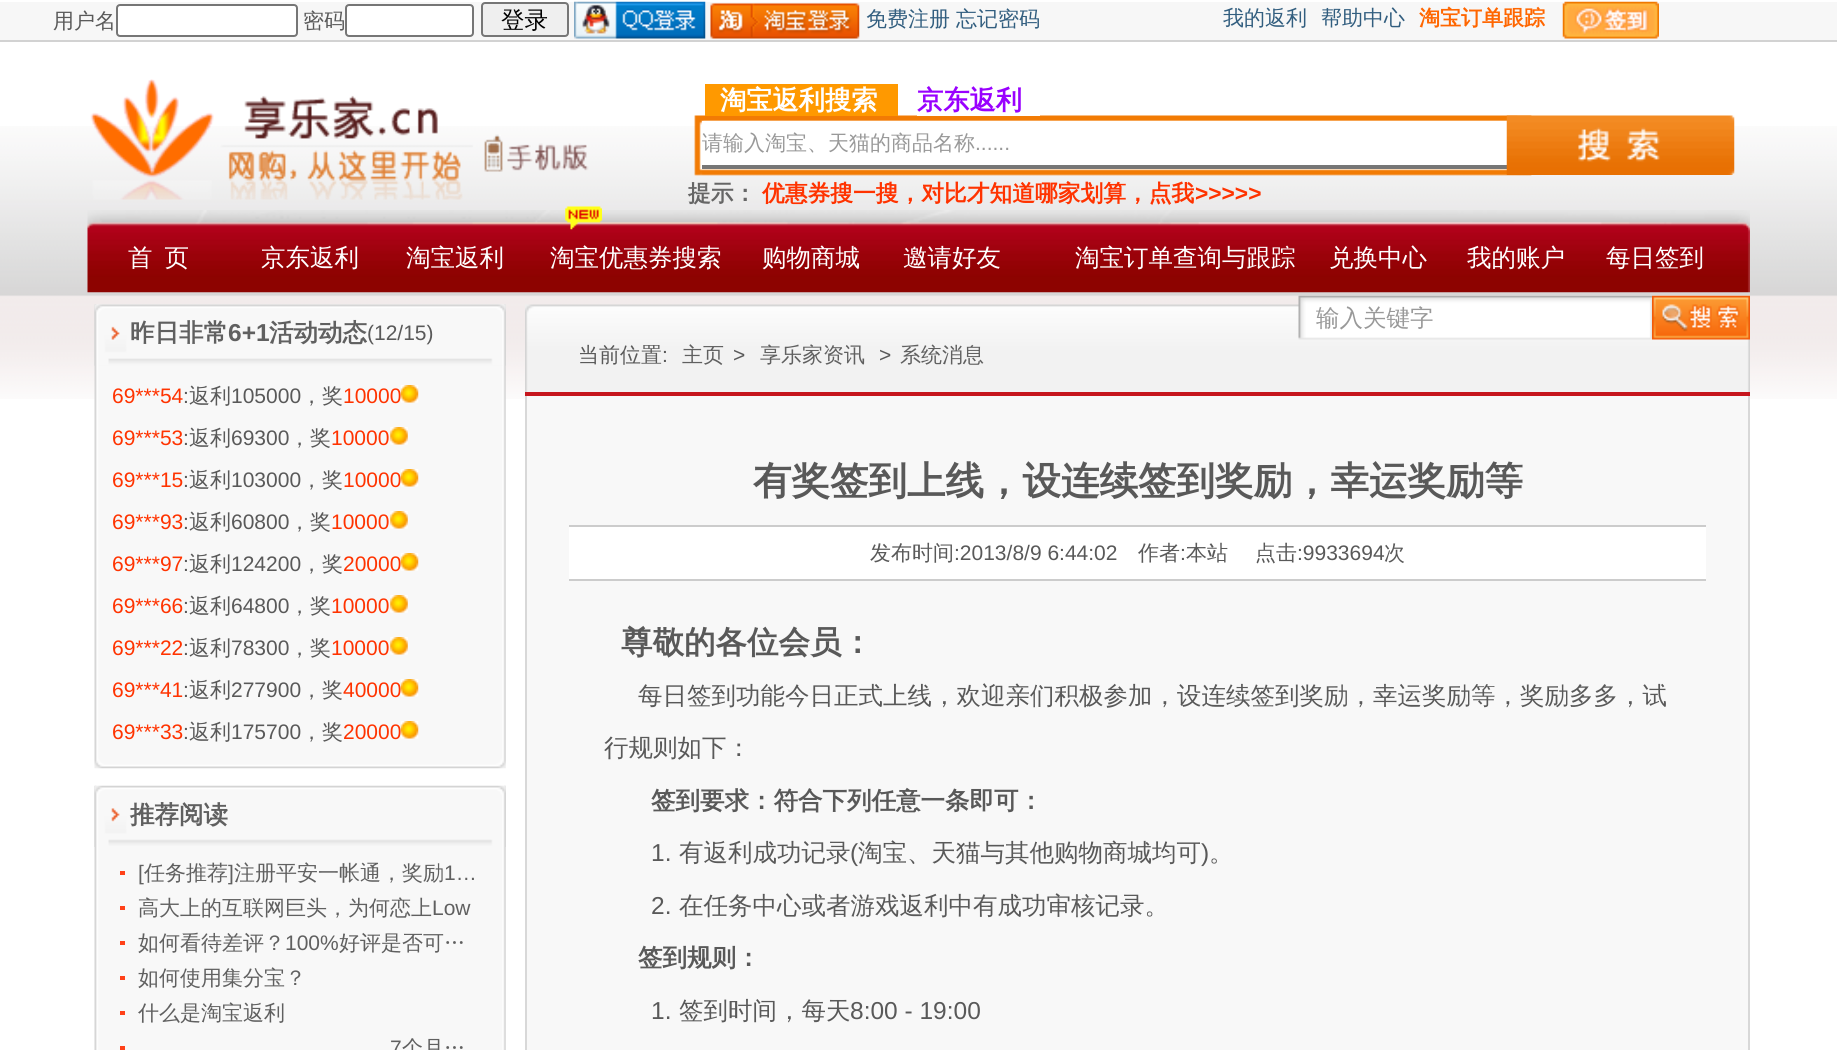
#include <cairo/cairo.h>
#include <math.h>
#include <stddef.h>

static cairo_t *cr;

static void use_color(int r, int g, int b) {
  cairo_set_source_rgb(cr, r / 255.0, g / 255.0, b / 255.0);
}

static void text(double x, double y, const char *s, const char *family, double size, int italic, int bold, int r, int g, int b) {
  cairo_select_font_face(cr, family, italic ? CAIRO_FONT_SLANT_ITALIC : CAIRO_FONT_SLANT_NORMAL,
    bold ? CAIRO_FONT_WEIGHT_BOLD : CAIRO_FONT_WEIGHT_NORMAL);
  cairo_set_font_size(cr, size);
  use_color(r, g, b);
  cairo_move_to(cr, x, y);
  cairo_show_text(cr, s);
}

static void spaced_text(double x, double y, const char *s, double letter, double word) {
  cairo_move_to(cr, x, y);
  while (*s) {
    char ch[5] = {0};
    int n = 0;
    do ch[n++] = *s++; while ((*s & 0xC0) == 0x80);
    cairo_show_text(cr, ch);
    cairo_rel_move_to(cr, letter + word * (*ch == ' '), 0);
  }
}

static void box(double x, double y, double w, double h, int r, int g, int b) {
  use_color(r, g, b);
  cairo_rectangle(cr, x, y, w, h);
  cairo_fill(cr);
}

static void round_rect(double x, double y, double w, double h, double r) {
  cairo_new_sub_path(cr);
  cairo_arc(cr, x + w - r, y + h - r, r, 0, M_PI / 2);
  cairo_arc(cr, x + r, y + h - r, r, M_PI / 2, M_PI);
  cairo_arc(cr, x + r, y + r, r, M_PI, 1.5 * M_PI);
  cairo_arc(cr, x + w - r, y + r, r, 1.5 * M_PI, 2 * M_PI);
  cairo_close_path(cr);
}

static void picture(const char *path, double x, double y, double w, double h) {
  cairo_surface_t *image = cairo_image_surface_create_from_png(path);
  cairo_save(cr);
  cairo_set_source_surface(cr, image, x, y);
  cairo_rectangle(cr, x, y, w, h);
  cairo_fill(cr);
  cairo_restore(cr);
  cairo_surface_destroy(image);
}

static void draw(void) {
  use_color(255, 255, 255);
  cairo_paint(cr);
  picture("img_01.png", 0, 126, 1837, 273);
  box(0, 2, 1837, 38, 247, 247, 247);
  box(0, 40, 1837, 2, 210, 210, 210);
  use_color(255, 255, 255);
  round_rect(117, 5, 180, 31, 3);
  cairo_fill_preserve(cr);
  use_color(118, 118, 118);
  cairo_stroke(cr);
  use_color(255, 255, 255);
  round_rect(346, 5, 127, 31, 3);
  cairo_fill_preserve(cr);
  use_color(118, 118, 118);
  cairo_stroke(cr);
  use_color(239, 239, 239);
  round_rect(482, 3, 86, 33, 3);
  cairo_fill_preserve(cr);
  use_color(118, 118, 118);
  cairo_stroke(cr);
  picture("img_02.png", 574, 1, 132, 38);
  picture("img_03.png", 710, 3, 150, 36);
  picture("img_04.png", 1562, 1, 97, 38);
  picture("img_05.png", 90, 79, 383, 121);
  picture("img_06.png", 694, 115, 838, 61);
  box(705, 84, 193, 32, 255, 153, 0);
  box(917, 115, 123, 1, 255, 255, 255);
  picture("img_07.png", 484, 134, 105, 38);
  box(702, 121, 805, 44, 255, 255, 255);
  box(702, 165, 805, 4, 118, 118, 118);
  picture("img_08.png", 1506, 115, 229, 60);
  picture("img_09.png", 87, 210, 1663, 83);
  picture("img_10.png", 565, 206, 37, 24);
  picture("img_11.png", 94, 304, 412, 465);
  picture("img_12.png", 94, 304, 412, 62);
  picture("img_14.png", 390, 427, 18, 18);
  picture("img_14.png", 390, 511, 18, 18);
  picture("img_14.png", 390, 595, 18, 18);
  picture("img_14.png", 390, 637, 18, 18);
  picture("img_15.png", 94, 785, 412, 265);
  picture("img_16.png", 94, 785, 412, 62);
  box(120, 871, 5, 4, 255, 65, 25);
  box(120, 906, 5, 4, 255, 65, 25);
  box(120, 941, 5, 4, 255, 65, 25);
  box(120, 976, 5, 4, 255, 65, 25);
  box(120, 1011, 5, 4, 255, 65, 25);
  box(120, 1046, 5, 4, 255, 65, 25);
  picture("img_17.png", 525, 304, 1225, 88);
  box(525, 392, 1225, 4, 198, 22, 29);
  picture("img_18.png", 1298, 295, 354, 45);
  picture("img_19.png", 1652, 295, 98, 45);
  box(527, 396, 1221, 654, 248, 248, 248);
  box(1748, 396, 2, 654, 216, 216, 216);
  box(525, 396, 2, 654, 216, 216, 216);
  box(569, 527, 1137, 52, 255, 255, 255);
  box(569, 525, 1137, 2, 204, 204, 204);
  box(569, 579, 1137, 2, 204, 204, 204);
  text(53, 28, "用户名", "WenQuanYi Zen Hei Medium", 21, 0, 0, 89, 89, 89);
  text(303, 28, "密码", "WenQuanYi Zen Hei Medium", 21, 0, 0, 89, 89, 89);
  text(501, 28, "登录", "WenQuanYi Zen Hei Medium", 23.5, 0, 0, 0, 0, 0);
  text(866, 26, "免费注册", "WenQuanYi Zen Hei Medium", 21, 0, 0, 50, 94, 127);
  text(956, 26, "忘记密码", "WenQuanYi Zen Hei Medium", 21, 0, 0, 50, 94, 127);
  text(1223, 25, "我的返利", "WenQuanYi Zen Hei Medium", 21, 0, 0, 50, 94, 127);
  text(1321, 25, "帮助中心", "WenQuanYi Zen Hei Medium", 21, 0, 0, 50, 94, 127);
  text(1419, 25, "淘宝订单跟踪", "WenQuanYi Zen Hei", 21, 0, 1, 255, 102, 0);
  text(720, 109, "淘宝返利搜索", "WenQuanYi Zen Hei", 26.25, 0, 1, 255, 255, 255);
  text(917, 109, "京东返利", "WenQuanYi Zen Hei", 26.25, 0, 1, 153, 0, 255);
  text(702, 150, "请输入淘宝、天猫的商品名称", "WenQuanYi Zen Hei Medium", 21, 0, 0, 153, 153, 153);
  text(975, 150, "......", "Liberation Sans", 21, 0, 0, 153, 153, 153);
  text(688, 201, "提示：", "WenQuanYi Zen Hei", 22.75, 0, 1, 102, 102, 102);
  text(762, 201, "优惠券搜一搜，对比才知道哪家划算，点我", "WenQuanYi Zen Hei", 22.75, 0, 1, 255, 51, 0);
  text(1195, 201, ">>>>>", "Liberation Sans", 22.75, 0, 1, 255, 51, 0);
  cairo_select_font_face(cr, "WenQuanYi Zen Hei Medium", CAIRO_FONT_SLANT_NORMAL, CAIRO_FONT_WEIGHT_NORMAL);
  cairo_set_font_size(cr, 24.5);
  use_color(255, 255, 255);
  spaced_text(128, 266, "首页", 12, 0);
  text(261, 266, "京东返利", "WenQuanYi Zen Hei Medium", 24.5, 0, 0, 255, 255, 255);
  text(406, 266, "淘宝返利", "WenQuanYi Zen Hei Medium", 24.5, 0, 0, 255, 255, 255);
  text(550, 266, "淘宝优惠券搜索", "WenQuanYi Zen Hei Medium", 24.5, 0, 0, 255, 255, 255);
  text(762, 266, "购物商城", "WenQuanYi Zen Hei Medium", 24.5, 0, 0, 255, 255, 255);
  text(903, 266, "邀请好友", "WenQuanYi Zen Hei Medium", 24.5, 0, 0, 255, 255, 255);
  text(1075, 266, "淘宝订单查询与跟踪", "WenQuanYi Zen Hei Medium", 24.5, 0, 0, 255, 255, 255);
  text(1329, 266, "兑换中心", "WenQuanYi Zen Hei Medium", 24.5, 0, 0, 255, 255, 255);
  text(1467, 266, "我的账户", "WenQuanYi Zen Hei Medium", 24.5, 0, 0, 255, 255, 255);
  text(1606, 266, "每日签到", "WenQuanYi Zen Hei Medium", 24.5, 0, 0, 255, 255, 255);
  text(130, 341, "昨日非常", "WenQuanYi Zen Hei", 24.5, 0, 1, 96, 96, 96);
  text(228, 341, "6+1", "Liberation Sans", 24.5, 0, 1, 96, 96, 96);
  text(269, 341, "活动动态", "WenQuanYi Zen Hei", 24.5, 0, 1, 96, 96, 96);
  text(367, 340, "(12/15)", "Liberation Sans", 21, 0, 0, 89, 89, 89);
  text(112, 403, "69***54", "Liberation Sans", 21, 0, 0, 255, 51, 0);
  text(183, 403, ":", "Liberation Sans", 21, 0, 0, 89, 89, 89);
  text(189, 403, "返利", "WenQuanYi Zen Hei Medium", 21, 0, 0, 89, 89, 89);
  text(231, 403, "105000", "Liberation Sans", 21, 0, 0, 89, 89, 89);
  text(301, 403, "，奖", "WenQuanYi Zen Hei Medium", 21, 0, 0, 89, 89, 89);
  text(343, 403, "10000", "Liberation Sans", 21, 0, 0, 255, 51, 0);
  picture("img_13.png", 400, 385, 19, 18);
  text(112, 445, "69***53", "Liberation Sans", 21, 0, 0, 255, 51, 0);
  text(183, 445, ":", "Liberation Sans", 21, 0, 0, 89, 89, 89);
  text(189, 445, "返利", "WenQuanYi Zen Hei Medium", 21, 0, 0, 89, 89, 89);
  text(231, 445, "69300", "Liberation Sans", 21, 0, 0, 89, 89, 89);
  text(289, 445, "，奖", "WenQuanYi Zen Hei Medium", 21, 0, 0, 89, 89, 89);
  text(331, 445, "10000", "Liberation Sans", 21, 0, 0, 255, 51, 0);
  text(112, 487, "69***15", "Liberation Sans", 21, 0, 0, 255, 51, 0);
  text(183, 487, ":", "Liberation Sans", 21, 0, 0, 89, 89, 89);
  text(189, 487, "返利", "WenQuanYi Zen Hei Medium", 21, 0, 0, 89, 89, 89);
  text(231, 487, "103000", "Liberation Sans", 21, 0, 0, 89, 89, 89);
  text(301, 487, "，奖", "WenQuanYi Zen Hei Medium", 21, 0, 0, 89, 89, 89);
  text(343, 487, "10000", "Liberation Sans", 21, 0, 0, 255, 51, 0);
  picture("img_13.png", 400, 469, 19, 18);
  text(112, 529, "69***93", "Liberation Sans", 21, 0, 0, 255, 51, 0);
  text(183, 529, ":", "Liberation Sans", 21, 0, 0, 89, 89, 89);
  text(189, 529, "返利", "WenQuanYi Zen Hei Medium", 21, 0, 0, 89, 89, 89);
  text(231, 529, "60800", "Liberation Sans", 21, 0, 0, 89, 89, 89);
  text(289, 529, "，奖", "WenQuanYi Zen Hei Medium", 21, 0, 0, 89, 89, 89);
  text(331, 529, "10000", "Liberation Sans", 21, 0, 0, 255, 51, 0);
  text(112, 571, "69***97", "Liberation Sans", 21, 0, 0, 255, 51, 0);
  text(183, 571, ":", "Liberation Sans", 21, 0, 0, 89, 89, 89);
  text(189, 571, "返利", "WenQuanYi Zen Hei Medium", 21, 0, 0, 89, 89, 89);
  text(231, 571, "124200", "Liberation Sans", 21, 0, 0, 89, 89, 89);
  text(301, 571, "，奖", "WenQuanYi Zen Hei Medium", 21, 0, 0, 89, 89, 89);
  text(343, 571, "20000", "Liberation Sans", 21, 0, 0, 255, 51, 0);
  picture("img_13.png", 400, 553, 19, 18);
  text(112, 613, "69***66", "Liberation Sans", 21, 0, 0, 255, 51, 0);
  text(183, 613, ":", "Liberation Sans", 21, 0, 0, 89, 89, 89);
  text(189, 613, "返利", "WenQuanYi Zen Hei Medium", 21, 0, 0, 89, 89, 89);
  text(231, 613, "64800", "Liberation Sans", 21, 0, 0, 89, 89, 89);
  text(289, 613, "，奖", "WenQuanYi Zen Hei Medium", 21, 0, 0, 89, 89, 89);
  text(331, 613, "10000", "Liberation Sans", 21, 0, 0, 255, 51, 0);
  text(112, 655, "69***22", "Liberation Sans", 21, 0, 0, 255, 51, 0);
  text(183, 655, ":", "Liberation Sans", 21, 0, 0, 89, 89, 89);
  text(189, 655, "返利", "WenQuanYi Zen Hei Medium", 21, 0, 0, 89, 89, 89);
  text(231, 655, "78300", "Liberation Sans", 21, 0, 0, 89, 89, 89);
  text(289, 655, "，奖", "WenQuanYi Zen Hei Medium", 21, 0, 0, 89, 89, 89);
  text(331, 655, "10000", "Liberation Sans", 21, 0, 0, 255, 51, 0);
  text(112, 697, "69***41", "Liberation Sans", 21, 0, 0, 255, 51, 0);
  text(183, 697, ":", "Liberation Sans", 21, 0, 0, 89, 89, 89);
  text(189, 697, "返利", "WenQuanYi Zen Hei Medium", 21, 0, 0, 89, 89, 89);
  text(231, 697, "277900", "Liberation Sans", 21, 0, 0, 89, 89, 89);
  text(301, 697, "，奖", "WenQuanYi Zen Hei Medium", 21, 0, 0, 89, 89, 89);
  text(343, 697, "40000", "Liberation Sans", 21, 0, 0, 255, 51, 0);
  picture("img_13.png", 400, 679, 19, 18);
  text(112, 739, "69***33", "Liberation Sans", 21, 0, 0, 255, 51, 0);
  text(183, 739, ":", "Liberation Sans", 21, 0, 0, 89, 89, 89);
  text(189, 739, "返利", "WenQuanYi Zen Hei Medium", 21, 0, 0, 89, 89, 89);
  text(231, 739, "175700", "Liberation Sans", 21, 0, 0, 89, 89, 89);
  text(301, 739, "，奖", "WenQuanYi Zen Hei Medium", 21, 0, 0, 89, 89, 89);
  text(343, 739, "20000", "Liberation Sans", 21, 0, 0, 255, 51, 0);
  picture("img_13.png", 400, 721, 19, 18);
  text(130, 823, "推荐阅读", "WenQuanYi Zen Hei", 24.5, 0, 1, 96, 96, 96);
  text(138, 880, "[", "Liberation Sans", 21, 0, 0, 96, 96, 96);
  text(144, 880, "任务推荐", "WenQuanYi Zen Hei Medium", 21, 0, 0, 96, 96, 96);
  text(228, 880, "]", "Liberation Sans", 21, 0, 0, 96, 96, 96);
  text(234, 880, "注册平安一帐通，奖励", "WenQuanYi Zen Hei Medium", 21, 0, 0, 96, 96, 96);
  text(444, 880, "1…", "Liberation Sans", 21, 0, 0, 96, 96, 96);
  text(138, 915, "高大上的互联网巨头，为何恋上", "WenQuanYi Zen Hei Medium", 21, 0, 0, 96, 96, 96);
  text(432, 915, "Low", "Liberation Sans", 21, 0, 0, 96, 96, 96);
  text(138, 950, "如何看待差评？", "WenQuanYi Zen Hei Medium", 21, 0, 0, 96, 96, 96);
  text(285, 950, "100%", "Liberation Sans", 21, 0, 0, 96, 96, 96);
  text(339, 950, "好评是否可…", "WenQuanYi Zen Hei Medium", 21, 0, 0, 96, 96, 96);
  text(138, 985, "如何使用集分宝？", "WenQuanYi Zen Hei Medium", 21, 0, 0, 96, 96, 96);
  text(138, 1020, "什么是淘宝返利", "WenQuanYi Zen Hei Medium", 21, 0, 0, 96, 96, 96);
  text(390, 1055, "7", "Liberation Sans", 21, 0, 0, 96, 96, 96);
  text(402, 1055, "个月…", "WenQuanYi Zen Hei Medium", 21, 0, 0, 96, 96, 96);
  text(1316, 326, "输入关键字", "WenQuanYi Zen Hei Medium", 23.5, 0, 0, 153, 153, 153);
  text(578, 362, "当前位置", "WenQuanYi Zen Hei Medium", 21, 0, 0, 89, 89, 89);
  text(662, 362, ":", "Liberation Sans", 21, 0, 0, 89, 89, 89);
  text(682, 362, "主页", "WenQuanYi Zen Hei Medium", 21, 0, 0, 96, 96, 96);
  text(733, 362, ">", "Liberation Sans", 21, 0, 0, 89, 89, 89);
  text(760, 362, "享乐家资讯", "WenQuanYi Zen Hei Medium", 21, 0, 0, 96, 96, 96);
  text(879, 362, ">", "Liberation Sans", 21, 0, 0, 89, 89, 89);
  text(900, 362, "系统消息", "WenQuanYi Zen Hei Medium", 21, 0, 0, 96, 96, 96);
  text(753, 494, "有奖签到上线，设连续签到奖励，幸运奖励等", "WenQuanYi Zen Hei", 38.5, 0, 1, 89, 89, 89);
  text(870, 560, "发布时间", "WenQuanYi Zen Hei Medium", 21, 0, 0, 89, 89, 89);
  text(954, 560, ":2013/8/9 6:44:02", "Liberation Sans", 21, 0, 0, 89, 89, 89);
  text(1138, 560, "作者", "WenQuanYi Zen Hei Medium", 21, 0, 0, 89, 89, 89);
  text(1180, 560, ":", "Liberation Sans", 21, 0, 0, 89, 89, 89);
  text(1186, 560, "本站", "WenQuanYi Zen Hei Medium", 21, 0, 0, 89, 89, 89);
  text(1255, 560, "点击", "WenQuanYi Zen Hei Medium", 21, 0, 0, 89, 89, 89);
  text(1297, 560, ":9933694", "Liberation Sans", 21, 0, 0, 89, 89, 89);
  text(1384, 560, "次", "WenQuanYi Zen Hei Medium", 21, 0, 0, 89, 89, 89);
  text(621, 653, "尊敬的各位会员：", "WenQuanYi Zen Hei", 31.5, 0, 1, 89, 89, 89);
  text(638, 704, "每日签到功能今日正式上线，欢迎亲们积极参加，设连续签到奖励，幸运奖励等，奖励多多，试", "WenQuanYi Zen Hei Medium", 24.5, 0, 0, 89, 89, 89);
  text(604, 756, "行规则如下：", "WenQuanYi Zen Hei Medium", 24.5, 0, 0, 89, 89, 89);
  text(651, 809, "签到要求：符合下列任意一条即可：", "WenQuanYi Zen Hei", 24.5, 0, 1, 89, 89, 89);
  text(651, 861, "1.", "Liberation Sans", 24.5, 0, 0, 89, 89, 89);
  text(679, 861, "有返利成功记录", "WenQuanYi Zen Hei Medium", 24.5, 0, 0, 89, 89, 89);
  text(850, 861, "(", "Liberation Sans", 24.5, 0, 0, 89, 89, 89);
  text(858, 861, "淘宝、天猫与其他购物商城均可", "WenQuanYi Zen Hei Medium", 24.5, 0, 0, 89, 89, 89);
  text(1201, 861, ")", "Liberation Sans", 24.5, 0, 0, 89, 89, 89);
  text(1209, 861, "。", "WenQuanYi Zen Hei Medium", 24.5, 0, 0, 89, 89, 89);
  text(651, 914, "2.", "Liberation Sans", 24.5, 0, 0, 89, 89, 89);
  text(679, 914, "在任务中心或者游戏返利中有成功审核记录。", "WenQuanYi Zen Hei Medium", 24.5, 0, 0, 89, 89, 89);
  text(638, 966, "签到规则：", "WenQuanYi Zen Hei", 24.5, 0, 1, 89, 89, 89);
  text(651, 1019, "1.", "Liberation Sans", 24.5, 0, 0, 89, 89, 89);
  text(679, 1019, "签到时间，每天", "WenQuanYi Zen Hei Medium", 24.5, 0, 0, 89, 89, 89);
  text(850, 1019, "8:00 - 19:00", "Liberation Sans", 24.5, 0, 0, 89, 89, 89);
}

int main(void) {
  cairo_surface_t *surface = cairo_image_surface_create(CAIRO_FORMAT_RGB24, 1837, 1050);
  cr = cairo_create(surface);
  cairo_font_options_t *options = cairo_font_options_create();
  cairo_font_options_set_hint_metrics(options, CAIRO_HINT_METRICS_OFF);
  cairo_font_options_set_hint_style(options, CAIRO_HINT_STYLE_NONE);
  cairo_set_font_options(cr, options);
  cairo_set_miter_limit(cr, 4);
  draw();
  cairo_surface_write_to_png(surface, "out.png");
  cairo_font_options_destroy(options);
  cairo_destroy(cr);
  cairo_surface_destroy(surface);
  return 0;
}
